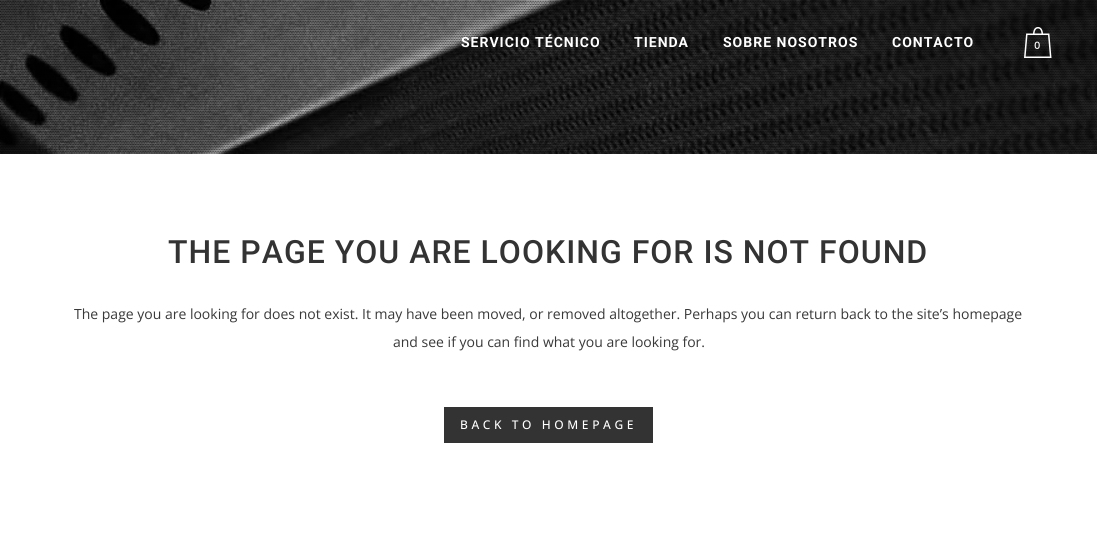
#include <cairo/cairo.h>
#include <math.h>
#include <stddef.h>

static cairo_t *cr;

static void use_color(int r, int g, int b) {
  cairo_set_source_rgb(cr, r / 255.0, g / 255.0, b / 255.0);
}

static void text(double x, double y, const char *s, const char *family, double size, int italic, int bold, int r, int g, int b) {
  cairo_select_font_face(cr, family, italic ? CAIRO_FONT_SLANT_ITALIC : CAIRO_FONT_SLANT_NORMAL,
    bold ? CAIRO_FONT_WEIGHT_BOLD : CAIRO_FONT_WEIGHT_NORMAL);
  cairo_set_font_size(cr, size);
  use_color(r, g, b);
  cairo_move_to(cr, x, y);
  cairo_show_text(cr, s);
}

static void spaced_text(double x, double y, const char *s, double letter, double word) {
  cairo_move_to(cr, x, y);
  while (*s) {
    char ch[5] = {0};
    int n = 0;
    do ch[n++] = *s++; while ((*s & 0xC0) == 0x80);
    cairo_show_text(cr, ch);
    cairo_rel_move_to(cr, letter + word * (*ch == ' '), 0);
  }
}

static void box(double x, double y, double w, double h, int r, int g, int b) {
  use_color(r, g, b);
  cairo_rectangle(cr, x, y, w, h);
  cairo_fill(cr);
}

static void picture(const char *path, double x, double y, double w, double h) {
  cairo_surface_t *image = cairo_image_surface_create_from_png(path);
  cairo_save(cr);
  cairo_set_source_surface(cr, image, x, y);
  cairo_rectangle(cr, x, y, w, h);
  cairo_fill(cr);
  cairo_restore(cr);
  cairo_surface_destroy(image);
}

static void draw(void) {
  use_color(255, 255, 255);
  cairo_paint(cr);
  picture("img_02.png", 0, 0, 1097, 154);
  picture("img_03.png", 0, 0, 1097, 154);
  picture("img_01.png", 1024, 27, 28, 31);
  box(444, 407, 209, 36, 51, 51, 51);
  cairo_select_font_face(cr, "Roboto", CAIRO_FONT_SLANT_NORMAL, CAIRO_FONT_WEIGHT_BOLD);
  cairo_set_font_size(cr, 14);
  use_color(255, 255, 255);
  spaced_text(461, 47, "SERVICIO TÉCNICO", 1, 0);
  spaced_text(634, 47, "TIENDA", 1, 0);
  spaced_text(723, 47, "SOBRE NOSOTROS", 1, 0);
  spaced_text(892, 47, "CONTACTO", 1, 0);
  text(1034, 49, "0", "Poppins Medium", 10, 0, 0, 255, 255, 255);
  cairo_select_font_face(cr, "Roboto Medium", CAIRO_FONT_SLANT_NORMAL, CAIRO_FONT_WEIGHT_NORMAL);
  cairo_set_font_size(cr, 32);
  use_color(51, 51, 51);
  spaced_text(168, 263, "THE PAGE YOU ARE LOOKING FOR IS NOT FOUND", 1, 0);
  text(74, 319, "The page you are looking for does not exist. It may have been moved, or removed altogether. Perhaps you can return back to the site’s homepage", "Open Sans", 14, 0, 0, 57, 57, 57);
  text(393, 347, "and see if you can find what you are looking for.", "Open Sans", 14, 0, 0, 57, 57, 57);
  cairo_select_font_face(cr, "Open Sans Medium", CAIRO_FONT_SLANT_NORMAL, CAIRO_FONT_WEIGHT_NORMAL);
  cairo_set_font_size(cr, 12);
  use_color(255, 255, 255);
  spaced_text(460, 429, "BACK TO HOMEPAGE", 3.6, 0);
}

int main(void) {
  cairo_surface_t *surface = cairo_image_surface_create(CAIRO_FORMAT_RGB24, 1097, 546);
  cr = cairo_create(surface);
  cairo_font_options_t *options = cairo_font_options_create();
  cairo_font_options_set_hint_metrics(options, CAIRO_HINT_METRICS_OFF);
  cairo_font_options_set_hint_style(options, CAIRO_HINT_STYLE_NONE);
  cairo_set_font_options(cr, options);
  cairo_set_miter_limit(cr, 4);
  draw();
  cairo_surface_write_to_png(surface, "out.png");
  cairo_font_options_destroy(options);
  cairo_destroy(cr);
  cairo_surface_destroy(surface);
  return 0;
}
